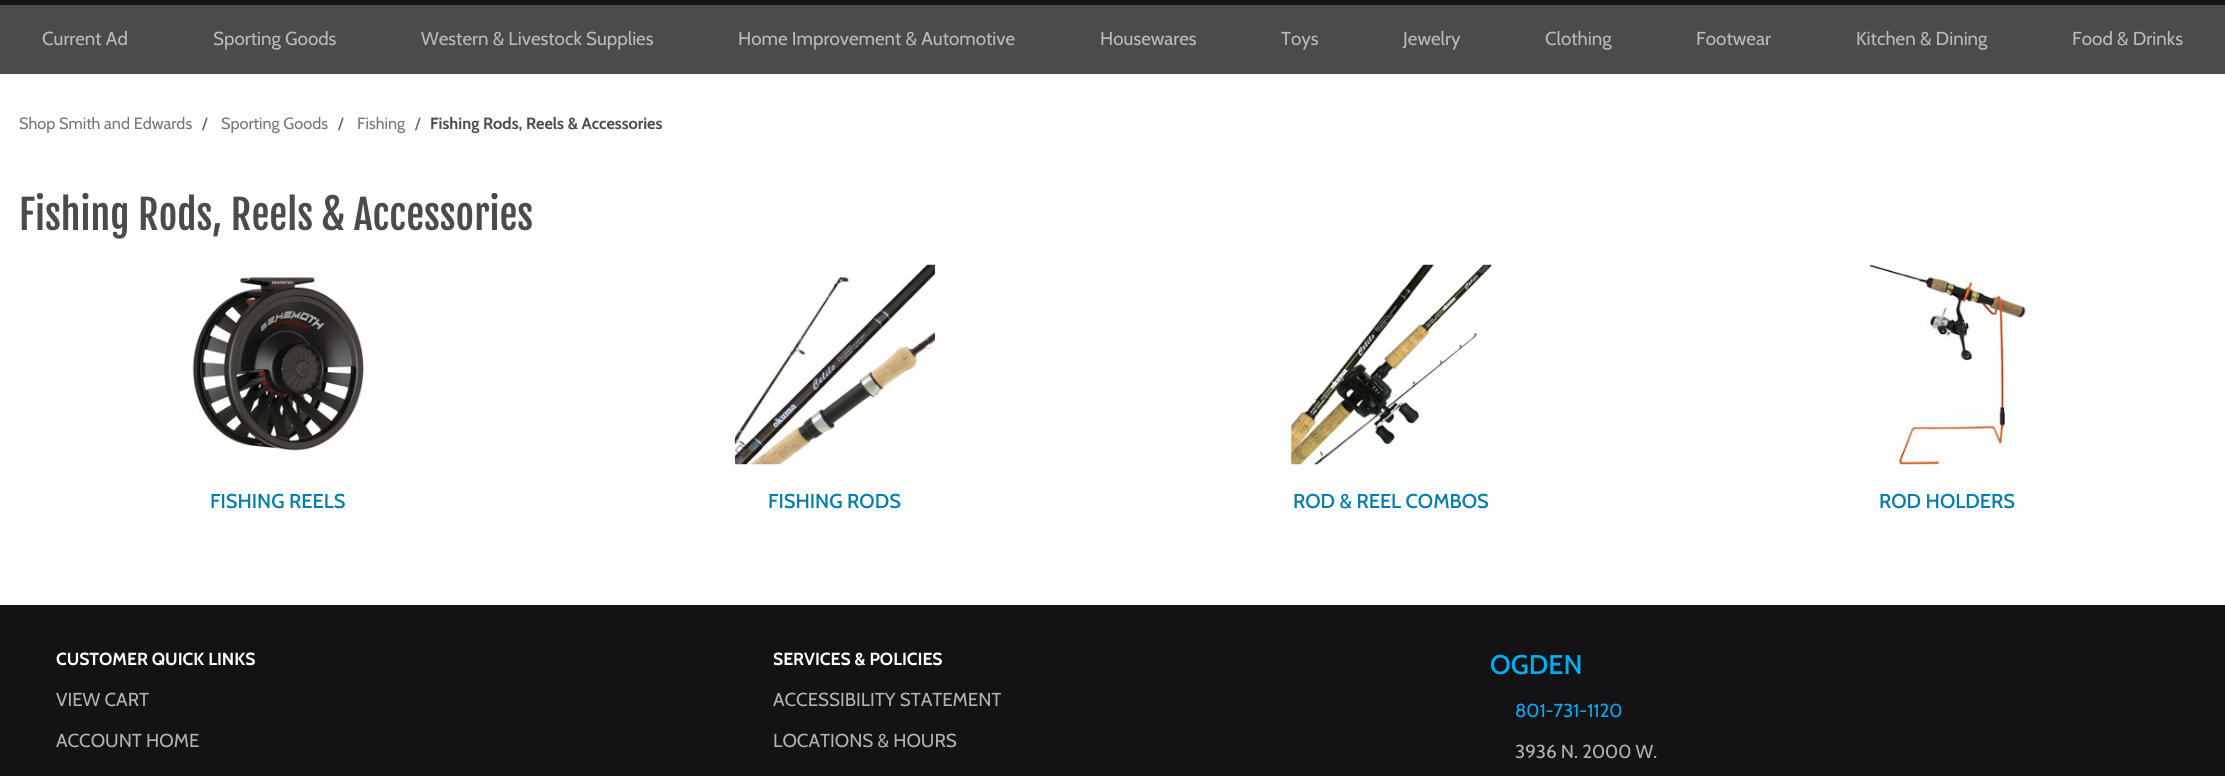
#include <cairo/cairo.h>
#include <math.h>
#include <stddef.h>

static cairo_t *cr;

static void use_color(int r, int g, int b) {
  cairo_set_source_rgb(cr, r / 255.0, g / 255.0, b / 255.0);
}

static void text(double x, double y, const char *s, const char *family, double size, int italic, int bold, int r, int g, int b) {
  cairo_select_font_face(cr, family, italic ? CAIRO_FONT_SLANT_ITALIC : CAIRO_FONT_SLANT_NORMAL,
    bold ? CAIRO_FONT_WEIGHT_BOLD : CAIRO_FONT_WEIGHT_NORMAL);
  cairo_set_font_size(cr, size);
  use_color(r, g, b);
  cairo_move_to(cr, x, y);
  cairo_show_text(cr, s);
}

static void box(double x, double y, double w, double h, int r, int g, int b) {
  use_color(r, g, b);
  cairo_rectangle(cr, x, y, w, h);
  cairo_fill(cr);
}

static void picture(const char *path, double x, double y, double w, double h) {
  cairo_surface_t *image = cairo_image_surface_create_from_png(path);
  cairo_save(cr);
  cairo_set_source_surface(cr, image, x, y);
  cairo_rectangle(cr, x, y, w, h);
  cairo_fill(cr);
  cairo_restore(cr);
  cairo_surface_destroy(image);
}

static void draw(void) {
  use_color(255, 255, 255);
  cairo_paint(cr);
  box(0, 0, 2225, 5, 20, 18, 21);
  box(0, 5, 2225, 69, 75, 75, 75);
  picture("img_01.png", 192, 272, 172, 179);
  picture("img_02.png", 734, 264, 203, 201);
  picture("img_03.png", 1288, 264, 204, 201);
  picture("img_04.png", 1867, 264, 163, 201);
  box(0, 605, 2225, 171, 20, 18, 21);
  text(42, 45, "Current Ad", "Cabin", 18.75, 0, 0, 188, 187, 184);
  text(213, 45, "Sporting Goods", "Cabin", 18.75, 0, 0, 188, 187, 184);
  text(421, 45, "Western & Livestock Supplies", "Cabin", 18.75, 0, 0, 188, 187, 184);
  text(738, 45, "Home Improvement & Automotive", "Cabin", 18.75, 0, 0, 188, 187, 184);
  text(1100, 45, "Housewares", "Cabin", 18.75, 0, 0, 188, 187, 184);
  text(1281, 45, "Toys", "Cabin", 18.75, 0, 0, 188, 187, 184);
  text(1403, 45, "Jewelry", "Cabin", 18.75, 0, 0, 188, 187, 184);
  text(1545, 45, "Clothing", "Cabin", 18.75, 0, 0, 188, 187, 184);
  text(1696, 45, "Footwear", "Cabin", 18.75, 0, 0, 188, 187, 184);
  text(1856, 45, "Kitchen & Dining", "Cabin", 18.75, 0, 0, 188, 187, 184);
  text(2072, 45, "Food & Drinks", "Cabin", 18.75, 0, 0, 188, 187, 184);
  text(19, 129, "Shop Smith and Edwards", "Cabin", 16.25, 0, 0, 118, 118, 111);
  text(202, 129, "/", "Cabin", 16.25, 0, 0, 91, 93, 85);
  text(221, 129, "Sporting Goods", "Cabin", 16.25, 0, 0, 118, 118, 111);
  text(338, 129, "/", "Cabin", 16.25, 0, 0, 91, 93, 85);
  text(357, 129, "Fishing", "Cabin", 16.25, 0, 0, 118, 118, 111);
  text(415, 129, "/", "Cabin", 16.25, 0, 0, 91, 93, 85);
  text(430, 129, "Fishing Rods, Reels & Accessories", "Cabin", 16.25, 0, 1, 75, 75, 75);
  text(19, 230, "Fishing Rods, Reels & Accessories", "Fjalla One", 40, 0, 0, 75, 75, 75);
  text(210, 508, "FISHING REELS", "Cabin Medium", 20, 0, 0, 0, 124, 173);
  text(768, 508, "FISHING RODS", "Cabin Medium", 20, 0, 0, 0, 124, 173);
  text(1293, 508, "ROD & REEL COMBOS", "Cabin Medium", 20, 0, 0, 0, 124, 173);
  text(1879, 508, "ROD HOLDERS", "Cabin Medium", 20, 0, 0, 0, 124, 173);
  text(56, 665, "CUSTOMER QUICK LINKS", "Cabin", 17.5, 0, 1, 255, 255, 255);
  text(56, 706, "VIEW CART", "Cabin", 18.75, 0, 0, 179, 178, 175);
  text(56, 747, "ACCOUNT HOME", "Cabin", 18.75, 0, 0, 179, 178, 175);
  text(773, 665, "SERVICES & POLICIES", "Cabin", 17.5, 0, 1, 255, 255, 255);
  text(773, 706, "ACCESSIBILITY STATEMENT", "Cabin", 18.75, 0, 0, 179, 178, 175);
  text(773, 747, "LOCATIONS & HOURS", "Cabin", 18.75, 0, 0, 179, 178, 175);
  text(1490, 674, "OGDEN", "Cabin Medium", 27, 0, 0, 0, 173, 239);
  text(1515, 717, "801-731-1120", "Cabin", 18.75, 0, 0, 0, 173, 239);
  text(1515, 758, "3936 N. 2000 W.", "Cabin", 18.75, 0, 0, 179, 178, 175);
}

int main(void) {
  cairo_surface_t *surface = cairo_image_surface_create(CAIRO_FORMAT_RGB24, 2225, 776);
  cr = cairo_create(surface);
  cairo_font_options_t *options = cairo_font_options_create();
  cairo_font_options_set_hint_metrics(options, CAIRO_HINT_METRICS_OFF);
  cairo_font_options_set_hint_style(options, CAIRO_HINT_STYLE_NONE);
  cairo_set_font_options(cr, options);
  cairo_set_miter_limit(cr, 4);
  draw();
  cairo_surface_write_to_png(surface, "out.png");
  cairo_font_options_destroy(options);
  cairo_destroy(cr);
  cairo_surface_destroy(surface);
  return 0;
}
